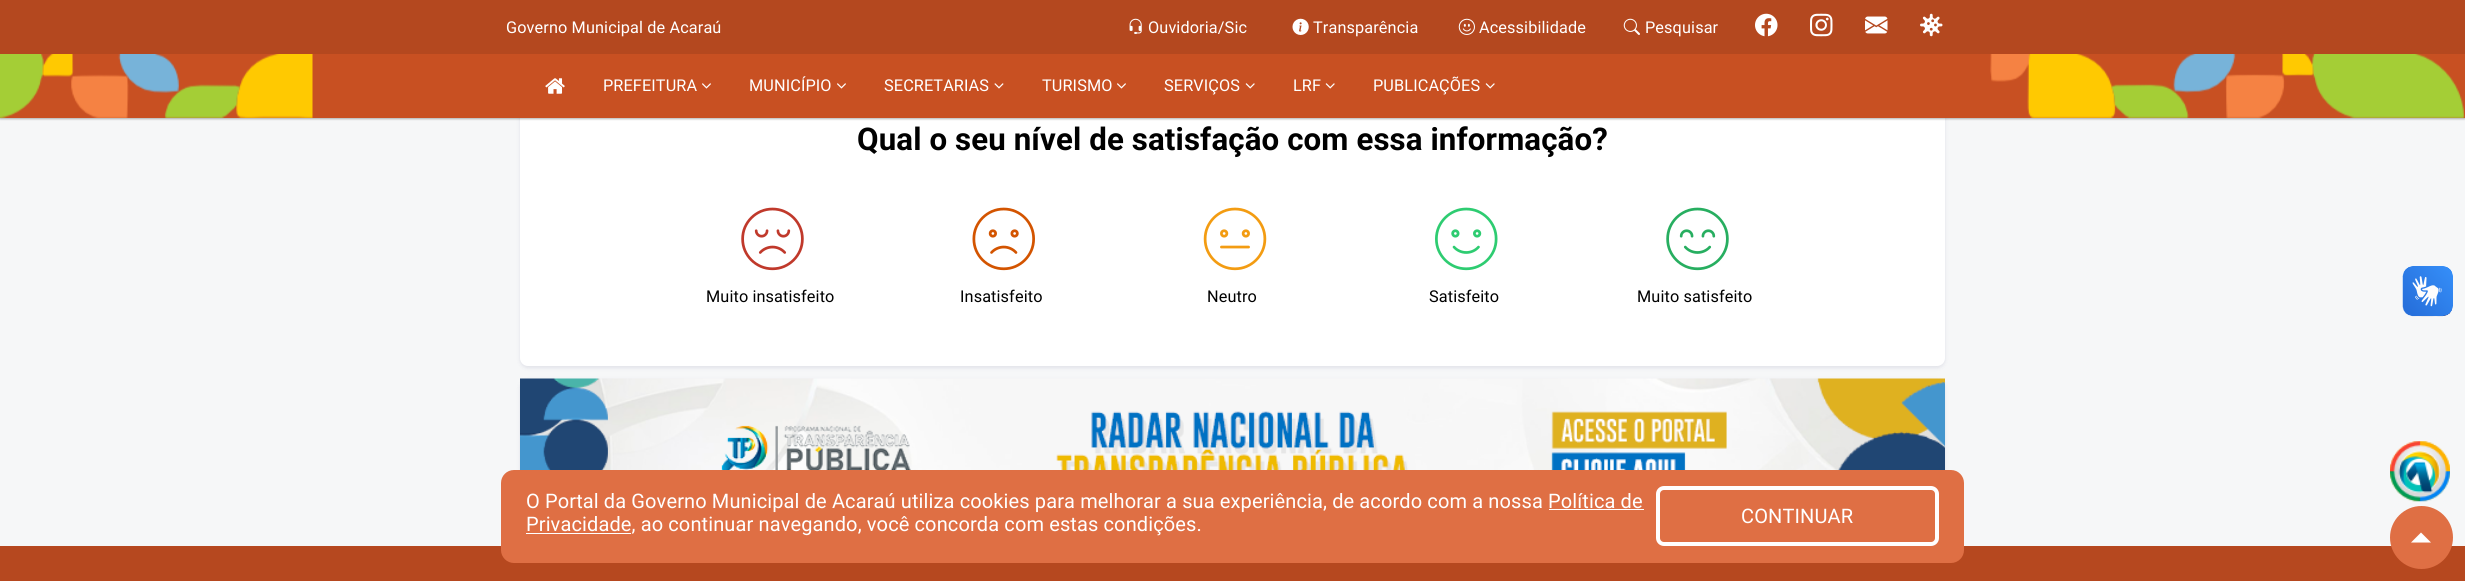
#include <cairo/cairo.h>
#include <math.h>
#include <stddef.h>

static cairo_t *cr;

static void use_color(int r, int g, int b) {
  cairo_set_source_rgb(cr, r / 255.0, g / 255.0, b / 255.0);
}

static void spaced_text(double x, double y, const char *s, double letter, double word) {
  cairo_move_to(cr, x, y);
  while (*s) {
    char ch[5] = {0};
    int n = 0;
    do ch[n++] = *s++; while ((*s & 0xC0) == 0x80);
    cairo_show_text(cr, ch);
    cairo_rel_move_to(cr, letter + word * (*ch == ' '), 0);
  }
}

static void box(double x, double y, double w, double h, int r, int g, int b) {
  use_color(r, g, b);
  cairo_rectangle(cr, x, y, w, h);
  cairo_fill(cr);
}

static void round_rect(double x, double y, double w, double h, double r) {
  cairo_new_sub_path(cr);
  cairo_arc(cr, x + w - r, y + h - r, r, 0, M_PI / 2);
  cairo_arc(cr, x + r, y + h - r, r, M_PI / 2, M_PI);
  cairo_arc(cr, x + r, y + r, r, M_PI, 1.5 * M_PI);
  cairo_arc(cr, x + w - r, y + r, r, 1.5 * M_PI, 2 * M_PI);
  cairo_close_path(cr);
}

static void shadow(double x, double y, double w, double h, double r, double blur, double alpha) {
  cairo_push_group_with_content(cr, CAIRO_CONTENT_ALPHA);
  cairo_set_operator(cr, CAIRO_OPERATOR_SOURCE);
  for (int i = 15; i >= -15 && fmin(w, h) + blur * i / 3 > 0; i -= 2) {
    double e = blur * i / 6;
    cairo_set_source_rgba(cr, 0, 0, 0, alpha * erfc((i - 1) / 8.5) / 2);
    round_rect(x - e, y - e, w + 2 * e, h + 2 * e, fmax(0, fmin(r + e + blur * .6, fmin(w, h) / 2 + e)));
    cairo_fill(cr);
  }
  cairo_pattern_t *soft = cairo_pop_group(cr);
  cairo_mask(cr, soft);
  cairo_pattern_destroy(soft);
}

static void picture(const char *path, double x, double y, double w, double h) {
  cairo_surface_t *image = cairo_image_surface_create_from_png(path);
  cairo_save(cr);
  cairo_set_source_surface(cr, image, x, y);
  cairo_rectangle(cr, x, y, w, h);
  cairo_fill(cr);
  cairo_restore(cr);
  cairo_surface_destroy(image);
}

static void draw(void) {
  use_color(246, 247, 248);
  cairo_paint(cr);
  use_color(3, 0, 71);
  shadow(520, 95, 1425, 273, 8, 2, 0.09);
  use_color(255, 255, 255);
  round_rect(520, 94, 1425, 272, 8);
  cairo_fill(cr);
  use_color(0, 0, 0);
  shadow(0, 1, 2465, 118, 0, 1, 0.3);
  box(0, 0, 2465, 54, 180, 72, 31);
  picture("img_01.png", 1129, 18, 13, 16);
  picture("img_02.png", 1292, 18, 17, 17);
  picture("img_03.png", 1458, 18, 17, 17);
  picture("img_04.png", 1623, 18, 17, 17);
  picture("img_05.png", 1755, 13, 23, 24);
  picture("img_06.png", 1810, 13, 23, 24);
  picture("img_07.png", 1865, 16, 23, 18);
  picture("img_08.png", 1920, 13, 23, 24);
  box(0, 54, 2465, 64, 200, 80, 34);
  picture("img_09.png", 0, 54, 2465, 64);
  picture("img_10.png", 545, 78, 20, 16);
  picture("img_11.png", 702, 83, 9, 6);
  picture("img_11.png", 837, 83, 9, 6);
  picture("img_12.png", 994, 83, 10, 6);
  picture("img_11.png", 1117, 83, 9, 6);
  picture("img_13.png", 1245, 83, 10, 6);
  picture("img_13.png", 1325, 83, 10, 6);
  picture("img_13.png", 1485, 83, 10, 6);
  picture("img_14.png", 741, 207, 63, 64);
  picture("img_15.png", 972, 207, 63, 64);
  picture("img_16.png", 1203, 207, 64, 64);
  picture("img_17.png", 1435, 207, 63, 64);
  picture("img_18.png", 1666, 207, 63, 64);
  picture("img_19.png", 2402, 266, 51, 51);
  picture("img_20.png", 2403, 266, 50, 50);
  use_color(3, 0, 71);
  shadow(520, 380, 1425, 143, 8, 2, 0.09);
  picture("img_21.png", 520, 378, 1425, 92);
  picture("img_22.png", 2390, 441, 60, 61);
  box(0, 546, 2465, 35, 182, 72, 31);
  use_color(223, 111, 68);
  round_rect(501, 470, 1463, 93, 13);
  cairo_fill(cr);
  box(1549, 509, 95, 1, 255, 255, 255);
  box(526, 533, 105, 1, 255, 255, 255);
  round_rect(1658, 488, 279, 56, 6);
  cairo_set_line_width(cr, 4);
  cairo_stroke(cr);
  use_color(223, 111, 68);
  cairo_arc(cr, 2421.5, 537.5, 31.5, 0, 2 * M_PI);
  cairo_fill(cr);
  use_color(255, 255, 255);
  cairo_new_path(cr);
  cairo_move_to(cr, 2431, 542.5);
  cairo_line_to(cr, 2411, 542.5);
  cairo_line_to(cr, 2421, 532.5);
  cairo_close_path(cr);
  cairo_fill(cr);
  cairo_select_font_face(cr, "Roboto", CAIRO_FONT_SLANT_NORMAL, CAIRO_FONT_WEIGHT_NORMAL);
  cairo_set_font_size(cr, 16.25);
  spaced_text(506, 33, "Governo Municipal de Acaraú", 0.12, 0);
  spaced_text(1148, 33, "Ouvidoria/Sic", 0.12, 0);
  spaced_text(1313, 33, "Transparência", 0.12, 0);
  spaced_text(1479, 33, "Acessibilidade", 0.12, 0);
  spaced_text(1645, 33, "Pesquisar", 0.12, 0);
  spaced_text(603, 91, "PREFEITURA", 0.12, 0);
  spaced_text(749, 91, "MUNICÍPIO", 0.12, 0);
  spaced_text(884, 91, "SECRETARIAS", 0.12, 0);
  spaced_text(1042, 91, "TURISMO", 0.12, 0);
  spaced_text(1164, 91, "SERVIÇOS", 0.12, 0);
  spaced_text(1293, 91, "LRF", 0.12, 0);
  spaced_text(1373, 91, "PUBLICAÇÕES", 0.12, 0);
  cairo_select_font_face(cr, "Roboto", CAIRO_FONT_SLANT_NORMAL, CAIRO_FONT_WEIGHT_BOLD);
  cairo_set_font_size(cr, 31.25);
  use_color(0, 0, 0);
  spaced_text(857, 150, "Qual o seu nível de satisfação com essa informação?", 0.12, 0);
  cairo_select_font_face(cr, "Roboto", CAIRO_FONT_SLANT_NORMAL, CAIRO_FONT_WEIGHT_NORMAL);
  cairo_set_font_size(cr, 16.25);
  spaced_text(706, 302, "Muito insatisfeito", 0.12, 0);
  spaced_text(960, 302, "Insatisfeito", 0.12, 0);
  spaced_text(1207, 302, "Neutro", 0.12, 0);
  spaced_text(1429, 302, "Satisfeito", 0.12, 0);
  spaced_text(1637, 302, "Muito satisfeito", 0.12, 0);
  cairo_set_font_size(cr, 20);
  use_color(255, 255, 255);
  spaced_text(526, 508, "O Portal da Governo Municipal de Acaraú utiliza cookies para melhorar a sua experiência, de acordo com a nossa Política de", 0.12, 0);
  spaced_text(526, 531, "Privacidade, ao continuar navegando, você concorda com estas condições.", 0.12, 0);
  spaced_text(1741, 523, "CONTINUAR", 0.12, 0);
}

int main(void) {
  cairo_surface_t *surface = cairo_image_surface_create(CAIRO_FORMAT_RGB24, 2465, 581);
  cr = cairo_create(surface);
  cairo_font_options_t *options = cairo_font_options_create();
  cairo_font_options_set_hint_metrics(options, CAIRO_HINT_METRICS_OFF);
  cairo_font_options_set_hint_style(options, CAIRO_HINT_STYLE_NONE);
  cairo_set_font_options(cr, options);
  cairo_set_miter_limit(cr, 4);
  draw();
  cairo_surface_write_to_png(surface, "out.png");
  cairo_font_options_destroy(options);
  cairo_destroy(cr);
  cairo_surface_destroy(surface);
  return 0;
}
